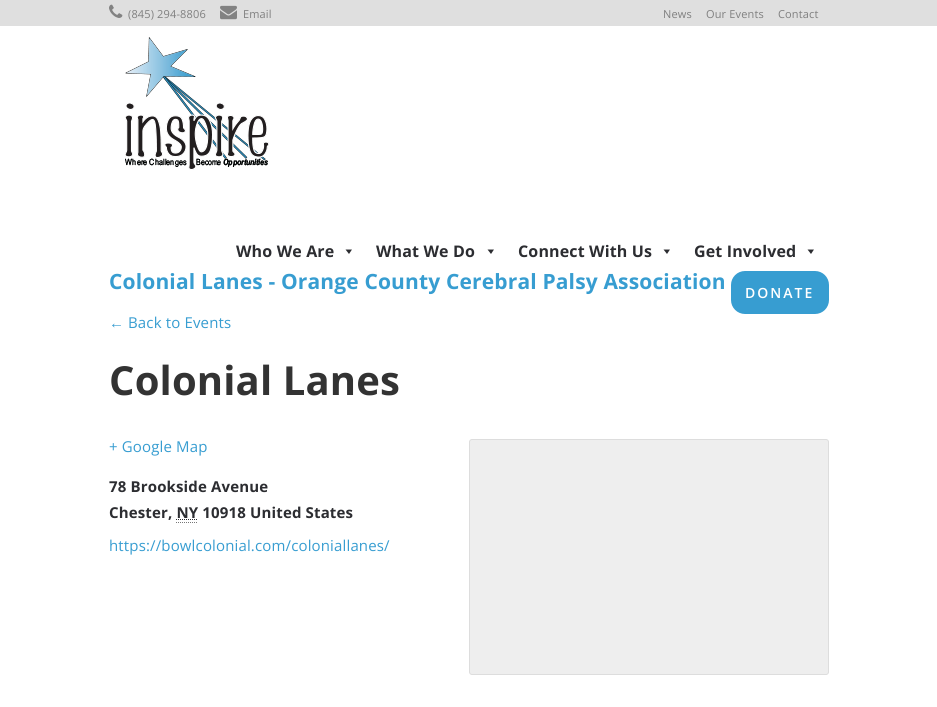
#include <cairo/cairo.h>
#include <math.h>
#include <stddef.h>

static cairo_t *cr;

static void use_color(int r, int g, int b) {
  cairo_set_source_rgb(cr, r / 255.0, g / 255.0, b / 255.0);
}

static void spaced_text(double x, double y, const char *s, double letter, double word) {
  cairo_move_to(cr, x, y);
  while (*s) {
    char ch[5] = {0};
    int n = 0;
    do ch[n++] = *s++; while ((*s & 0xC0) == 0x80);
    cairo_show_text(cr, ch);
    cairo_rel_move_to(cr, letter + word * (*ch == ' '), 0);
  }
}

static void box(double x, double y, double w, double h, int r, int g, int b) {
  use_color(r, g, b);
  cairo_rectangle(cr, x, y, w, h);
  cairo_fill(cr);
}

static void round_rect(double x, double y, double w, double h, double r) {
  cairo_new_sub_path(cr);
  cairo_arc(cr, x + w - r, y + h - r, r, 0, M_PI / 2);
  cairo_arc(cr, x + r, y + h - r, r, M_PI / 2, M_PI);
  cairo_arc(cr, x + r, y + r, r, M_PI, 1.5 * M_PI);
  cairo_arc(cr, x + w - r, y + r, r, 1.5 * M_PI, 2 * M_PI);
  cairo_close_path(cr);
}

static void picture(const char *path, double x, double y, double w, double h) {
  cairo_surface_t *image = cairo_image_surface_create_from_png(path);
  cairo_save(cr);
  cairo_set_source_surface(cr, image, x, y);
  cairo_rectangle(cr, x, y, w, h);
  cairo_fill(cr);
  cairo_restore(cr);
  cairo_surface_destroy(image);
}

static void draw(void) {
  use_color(255, 255, 255);
  cairo_paint(cr);
  box(0, 0, 937, 26, 223, 223, 223);
  picture("img_01.png", 109, 4, 14, 14);
  picture("img_02.png", 220, 5, 17, 15);
  picture("img_03.png", 125, 37, 144, 133);
  use_color(44, 45, 49);
  cairo_new_path(cr);
  cairo_move_to(cr, 352, 249.5);
  cairo_line_to(cr, 349, 254);
  cairo_line_to(cr, 345.5, 249.5);
  cairo_close_path(cr);
  cairo_fill(cr);
  cairo_new_path(cr);
  cairo_move_to(cr, 494, 249.5);
  cairo_line_to(cr, 491, 254);
  cairo_line_to(cr, 487.5, 249.5);
  cairo_close_path(cr);
  cairo_fill(cr);
  cairo_new_path(cr);
  cairo_move_to(cr, 670, 249.5);
  cairo_line_to(cr, 667, 254);
  cairo_line_to(cr, 663.5, 249.5);
  cairo_close_path(cr);
  cairo_fill(cr);
  cairo_new_path(cr);
  cairo_move_to(cr, 814, 249.5);
  cairo_line_to(cr, 811, 254);
  cairo_line_to(cr, 807.5, 249.5);
  cairo_close_path(cr);
  cairo_fill(cr);
  use_color(55, 157, 209);
  round_rect(731, 271, 98, 43, 14);
  cairo_fill(cr);
  cairo_new_path(cr);
  cairo_move_to(cr, 176, 522.5);
  cairo_line_to(cr, 198, 522.5);
  use_color(119, 119, 119);
  cairo_set_line_width(cr, 1);
  cairo_set_dash(cr, (double[]){1, 1}, 2, 0);
  cairo_stroke(cr);
  cairo_new_path(cr);
  cairo_move_to(cr, 176, 519.5);
  cairo_line_to(cr, 198, 519.5);
  use_color(44, 45, 49);
  cairo_stroke(cr);
  use_color(238, 238, 238);
  round_rect(469.5, 439.5, 359, 235, 2.5);
  cairo_fill_preserve(cr);
  use_color(221, 221, 221);
  cairo_set_dash(cr, NULL, 0, 0);
  cairo_stroke(cr);
  cairo_select_font_face(cr, "Open Sans", CAIRO_FONT_SLANT_NORMAL, CAIRO_FONT_WEIGHT_NORMAL);
  cairo_set_font_size(cr, 11);
  use_color(127, 127, 127);
  spaced_text(128, 18, "(845) 294-8806", 0.15, 0);
  spaced_text(243, 18, "Email", 0.15, 0);
  spaced_text(663, 18, "News", 0.15, 0);
  spaced_text(706, 18, "Our Events", 0.15, 0);
  spaced_text(778, 18, "Contact", 0.15, 0);
  cairo_select_font_face(cr, "Open Sans", CAIRO_FONT_SLANT_NORMAL, CAIRO_FONT_WEIGHT_BOLD);
  cairo_set_font_size(cr, 16);
  use_color(44, 45, 49);
  spaced_text(236, 257, "Who We Are", 0.15, 0);
  spaced_text(376, 257, "What We Do", 0.15, 0);
  spaced_text(518, 257, "Connect With Us", 0.15, 0);
  spaced_text(694, 257, "Get Involved", 0.15, 0);
  cairo_select_font_face(cr, "Open Sans SemiBold", CAIRO_FONT_SLANT_NORMAL, CAIRO_FONT_WEIGHT_NORMAL);
  cairo_set_font_size(cr, 14);
  use_color(255, 255, 255);
  spaced_text(745, 298, "DONATE", 2, 0);
  cairo_select_font_face(cr, "Open Sans", CAIRO_FONT_SLANT_NORMAL, CAIRO_FONT_WEIGHT_BOLD);
  cairo_set_font_size(cr, 21);
  use_color(55, 157, 209);
  spaced_text(109, 289, "Colonial Lanes - Orange County Cerebral Palsy Association", 0.15, 0);
  cairo_select_font_face(cr, "Liberation Serif", CAIRO_FONT_SLANT_NORMAL, CAIRO_FONT_WEIGHT_NORMAL);
  cairo_set_font_size(cr, 15);
  spaced_text(109, 328, "←", 0.15, 0);
  cairo_select_font_face(cr, "Open Sans", CAIRO_FONT_SLANT_NORMAL, CAIRO_FONT_WEIGHT_NORMAL);
  spaced_text(128, 328, "Back to Events", 0.15, 0);
  cairo_select_font_face(cr, "Open Sans", CAIRO_FONT_SLANT_NORMAL, CAIRO_FONT_WEIGHT_BOLD);
  cairo_set_font_size(cr, 40);
  use_color(51, 51, 51);
  spaced_text(109, 395, "Colonial Lanes", 0.15, 0);
  cairo_select_font_face(cr, "Open Sans", CAIRO_FONT_SLANT_NORMAL, CAIRO_FONT_WEIGHT_NORMAL);
  cairo_set_font_size(cr, 15);
  use_color(55, 157, 209);
  spaced_text(109, 452, "+ Google Map", 0.15, 0);
  cairo_select_font_face(cr, "Open Sans", CAIRO_FONT_SLANT_NORMAL, CAIRO_FONT_WEIGHT_BOLD);
  use_color(44, 45, 49);
  spaced_text(109, 492, "78 Brookside Avenue", 0.15, 0);
  spaced_text(109, 518, "Chester, NY 10918 United States", 0.15, 0);
  cairo_select_font_face(cr, "Open Sans", CAIRO_FONT_SLANT_NORMAL, CAIRO_FONT_WEIGHT_NORMAL);
  use_color(55, 157, 209);
  spaced_text(109, 551, "https://bowlcolonial.com/coloniallanes/", 0.15, 0);
}

int main(void) {
  cairo_surface_t *surface = cairo_image_surface_create(CAIRO_FORMAT_RGB24, 937, 707);
  cr = cairo_create(surface);
  cairo_font_options_t *options = cairo_font_options_create();
  cairo_font_options_set_hint_metrics(options, CAIRO_HINT_METRICS_OFF);
  cairo_font_options_set_hint_style(options, CAIRO_HINT_STYLE_NONE);
  cairo_set_font_options(cr, options);
  cairo_set_miter_limit(cr, 4);
  draw();
  cairo_surface_write_to_png(surface, "out.png");
  cairo_font_options_destroy(options);
  cairo_destroy(cr);
  cairo_surface_destroy(surface);
  return 0;
}
